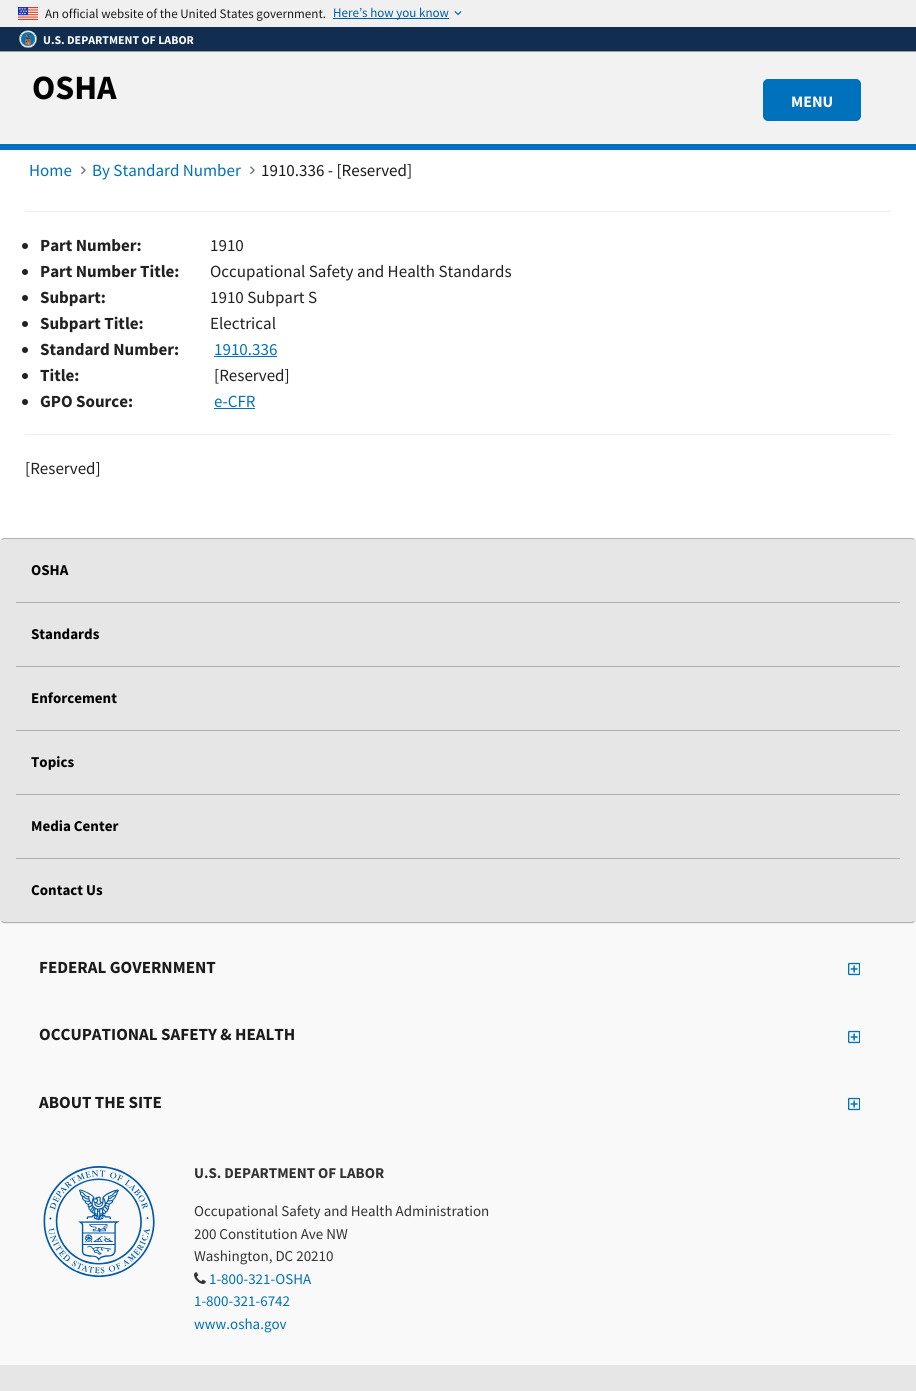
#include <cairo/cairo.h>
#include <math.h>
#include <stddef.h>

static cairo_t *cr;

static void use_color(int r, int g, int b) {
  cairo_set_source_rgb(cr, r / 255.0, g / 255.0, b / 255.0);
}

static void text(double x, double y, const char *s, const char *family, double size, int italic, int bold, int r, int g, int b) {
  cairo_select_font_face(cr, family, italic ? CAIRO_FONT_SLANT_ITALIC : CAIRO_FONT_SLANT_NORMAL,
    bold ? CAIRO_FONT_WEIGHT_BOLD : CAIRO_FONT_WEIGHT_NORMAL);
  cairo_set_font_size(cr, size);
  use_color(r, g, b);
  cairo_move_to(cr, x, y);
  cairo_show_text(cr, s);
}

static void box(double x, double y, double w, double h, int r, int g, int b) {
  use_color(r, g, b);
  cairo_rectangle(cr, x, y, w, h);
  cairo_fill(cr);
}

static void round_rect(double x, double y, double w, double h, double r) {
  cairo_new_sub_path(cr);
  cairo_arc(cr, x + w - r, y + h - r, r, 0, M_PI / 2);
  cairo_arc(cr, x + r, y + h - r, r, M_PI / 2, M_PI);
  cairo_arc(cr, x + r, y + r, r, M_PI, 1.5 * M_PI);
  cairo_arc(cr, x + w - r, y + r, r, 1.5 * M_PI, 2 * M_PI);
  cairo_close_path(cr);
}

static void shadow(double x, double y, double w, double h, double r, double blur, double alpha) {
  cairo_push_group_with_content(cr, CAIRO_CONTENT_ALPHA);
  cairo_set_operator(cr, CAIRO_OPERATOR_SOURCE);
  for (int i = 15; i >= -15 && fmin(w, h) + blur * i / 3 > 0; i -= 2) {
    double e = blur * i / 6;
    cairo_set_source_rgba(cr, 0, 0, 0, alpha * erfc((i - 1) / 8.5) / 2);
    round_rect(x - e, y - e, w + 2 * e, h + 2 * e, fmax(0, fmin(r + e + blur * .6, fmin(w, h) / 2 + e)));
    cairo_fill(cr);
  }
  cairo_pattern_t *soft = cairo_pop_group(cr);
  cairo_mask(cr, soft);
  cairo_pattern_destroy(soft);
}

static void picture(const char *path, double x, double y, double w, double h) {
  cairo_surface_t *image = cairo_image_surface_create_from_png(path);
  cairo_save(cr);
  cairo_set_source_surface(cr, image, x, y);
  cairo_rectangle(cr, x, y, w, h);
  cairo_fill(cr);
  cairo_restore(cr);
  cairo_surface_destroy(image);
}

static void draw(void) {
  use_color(255, 255, 255);
  cairo_paint(cr);
  box(0, 0, 916, 27, 240, 240, 240);
  picture("img_01.png", 18, 7, 20, 13);
  box(333, 18, 116, 1, 0, 94, 162);
  picture("img_02.png", 454, 11, 8, 5);
  box(0, 27, 916, 24, 17, 46, 81);
  box(0, 51, 916, 1, 151, 151, 151);
  picture("img_03.png", 19, 30, 18, 18);
  box(0, 52, 916, 92, 242, 242, 242);
  use_color(0, 113, 188);
  round_rect(763, 79, 98, 42, 5);
  cairo_fill(cr);
  box(0, 144, 916, 6, 0, 113, 188);
  picture("img_04.png", 81, 166, 5, 9);
  picture("img_04.png", 250, 166, 5, 9);
  box(25, 211, 866, 1, 238, 238, 238);
  box(25, 434, 866, 1, 238, 238, 238);
  use_color(33, 33, 33);
  cairo_arc(cr, 25, 246, 3, 0, 2 * M_PI);
  cairo_fill(cr);
  cairo_arc(cr, 25, 272, 3, 0, 2 * M_PI);
  cairo_fill(cr);
  cairo_arc(cr, 25, 298, 3, 0, 2 * M_PI);
  cairo_fill(cr);
  cairo_arc(cr, 25, 324, 3, 0, 2 * M_PI);
  cairo_fill(cr);
  cairo_arc(cr, 25, 350, 3, 0, 2 * M_PI);
  cairo_fill(cr);
  box(214, 356, 63, 1, 0, 113, 188);
  use_color(33, 33, 33);
  cairo_arc(cr, 25, 376, 3, 0, 2 * M_PI);
  cairo_fill(cr);
  cairo_arc(cr, 25, 402, 3, 0, 2 * M_PI);
  cairo_fill(cr);
  box(214, 408, 41, 1, 0, 113, 188);
  box(0, 923, 916, 442, 249, 249, 249);
  use_color(0, 0, 0);
  shadow(0, 539, 916, 385, 4, 0.5, 0.05);
  use_color(230, 230, 230);
  round_rect(0, 538, 916, 385, 4);
  cairo_fill(cr);
  cairo_new_path(cr);
  cairo_move_to(cr, 1.5, 539.5);
  cairo_line_to(cr, 4, 538.5);
  cairo_line_to(cr, 912, 538.5);
  cairo_line_to(cr, 914.5, 539.5);
  use_color(174, 176, 181);
  cairo_set_line_width(cr, 1);
  cairo_stroke(cr);
  cairo_new_path(cr);
  cairo_move_to(cr, 914.5, 921.5);
  cairo_line_to(cr, 912, 922.5);
  cairo_line_to(cr, 4, 922.5);
  cairo_line_to(cr, 1.5, 921.5);
  cairo_stroke(cr);
  box(16, 602, 884, 1, 174, 176, 181);
  box(16, 666, 884, 1, 174, 176, 181);
  box(16, 730, 884, 1, 174, 176, 181);
  box(16, 794, 884, 1, 174, 176, 181);
  box(16, 858, 884, 1, 174, 176, 181);
  picture("img_05.png", 848, 962, 12, 14);
  picture("img_05.png", 848, 1030, 12, 14);
  picture("img_05.png", 848, 1097, 12, 14);
  picture("img_06.png", 43, 1166, 112, 111);
  picture("img_07.png", 194, 1272, 12, 12);
  box(0, 1365, 916, 26, 230, 230, 230);
  text(45, 18, "An official website of the United States government.", "Source Sans Pro", 13, 0, 0, 27, 27, 27);
  text(333, 17, "Here’s how you know", "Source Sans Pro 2", 13, 0, 0, 0, 94, 162);
  text(43, 44, "U.S. DEPARTMENT OF LABOR", "Source Sans Pro", 11.9, 0, 1, 255, 255, 255);
  text(32, 99, "OSHA", "Source Sans Pro 2", 34, 0, 1, 0, 0, 0);
  text(791, 107, "MENU", "Source Sans Pro", 16, 0, 1, 255, 255, 255);
  text(29, 176, "Home", "Source Sans Pro 2", 17, 0, 0, 0, 113, 188);
  text(92, 176, "By Standard Number", "Source Sans Pro 2", 17, 0, 0, 0, 113, 188);
  text(261, 176, "1910.336 - [Reserved]", "Source Sans Pro 2", 17, 0, 0, 27, 27, 27);
  text(40, 251, "Part Number:", "Source Sans Pro", 17, 0, 1, 33, 33, 33);
  text(210, 251, "1910", "Source Sans Pro 2", 17, 0, 0, 33, 33, 33);
  text(40, 277, "Part Number Title:", "Source Sans Pro", 17, 0, 1, 33, 33, 33);
  text(210, 277, "Occupational Safety and Health Standards", "Source Sans Pro 2", 17, 0, 0, 33, 33, 33);
  text(40, 303, "Subpart:", "Source Sans Pro", 17, 0, 1, 33, 33, 33);
  text(210, 303, "1910 Subpart S", "Source Sans Pro 2", 17, 0, 0, 33, 33, 33);
  text(40, 329, "Subpart Title:", "Source Sans Pro", 17, 0, 1, 33, 33, 33);
  text(210, 329, "Electrical", "Source Sans Pro 2", 17, 0, 0, 33, 33, 33);
  text(40, 355, "Standard Number:", "Source Sans Pro", 17, 0, 1, 33, 33, 33);
  text(214, 355, "1910.336", "Source Sans Pro 2", 17, 0, 0, 0, 113, 188);
  text(40, 381, "Title:", "Source Sans Pro", 17, 0, 1, 33, 33, 33);
  text(214, 381, "[Reserved]", "Source Sans Pro 2", 17, 0, 0, 33, 33, 33);
  text(40, 407, "GPO Source:", "Source Sans Pro", 17, 0, 1, 33, 33, 33);
  text(214, 407, "e-CFR", "Source Sans Pro 2", 17, 0, 0, 0, 113, 188);
  text(25, 474, "[Reserved]", "Source Sans Pro 2", 17, 0, 0, 33, 33, 33);
  text(31, 575, "OSHA", "Source Sans Pro 2", 15, 0, 1, 0, 0, 0);
  text(31, 639, "Standards", "Source Sans Pro 2", 15, 0, 1, 0, 0, 0);
  text(31, 703, "Enforcement", "Source Sans Pro 2", 15, 0, 1, 0, 0, 0);
  text(31, 767, "Topics", "Source Sans Pro 2", 15, 0, 1, 0, 0, 0);
  text(31, 831, "Media Center", "Source Sans Pro 2", 15, 0, 1, 0, 0, 0);
  text(31, 895, "Contact Us", "Source Sans Pro 2", 15, 0, 1, 0, 0, 0);
  text(39, 973, "FEDERAL GOVERNMENT", "Source Sans Pro", 17, 0, 1, 27, 27, 27);
  text(39, 1040, "OCCUPATIONAL SAFETY & HEALTH", "Source Sans Pro", 17, 0, 1, 27, 27, 27);
  text(39, 1108, "ABOUT THE SITE", "Source Sans Pro", 17, 0, 1, 27, 27, 27);
  text(194, 1178, "U.S. DEPARTMENT OF LABOR", "Source Sans Pro", 15, 0, 1, 51, 51, 51);
  text(194, 1216, "Occupational Safety and Health Administration", "Source Sans Pro", 15, 0, 0, 51, 51, 51);
  text(194, 1239, "200 Constitution Ave NW", "Source Sans Pro", 15, 0, 0, 51, 51, 51);
  text(194, 1261, "Washington, DC 20210", "Source Sans Pro", 15, 0, 0, 51, 51, 51);
  text(209, 1284, "1-800-321-OSHA", "Source Sans Pro", 15, 0, 0, 0, 113, 188);
  text(194, 1306, "1-800-321-6742", "Source Sans Pro", 15, 0, 0, 0, 113, 188);
  text(194, 1329, "www.osha.gov", "Source Sans Pro", 15, 0, 0, 0, 113, 188);
}

int main(void) {
  cairo_surface_t *surface = cairo_image_surface_create(CAIRO_FORMAT_RGB24, 916, 1391);
  cr = cairo_create(surface);
  cairo_font_options_t *options = cairo_font_options_create();
  cairo_font_options_set_hint_metrics(options, CAIRO_HINT_METRICS_OFF);
  cairo_font_options_set_hint_style(options, CAIRO_HINT_STYLE_NONE);
  cairo_set_font_options(cr, options);
  cairo_set_miter_limit(cr, 4);
  draw();
  cairo_surface_write_to_png(surface, "out.png");
  cairo_font_options_destroy(options);
  cairo_destroy(cr);
  cairo_surface_destroy(surface);
  return 0;
}
